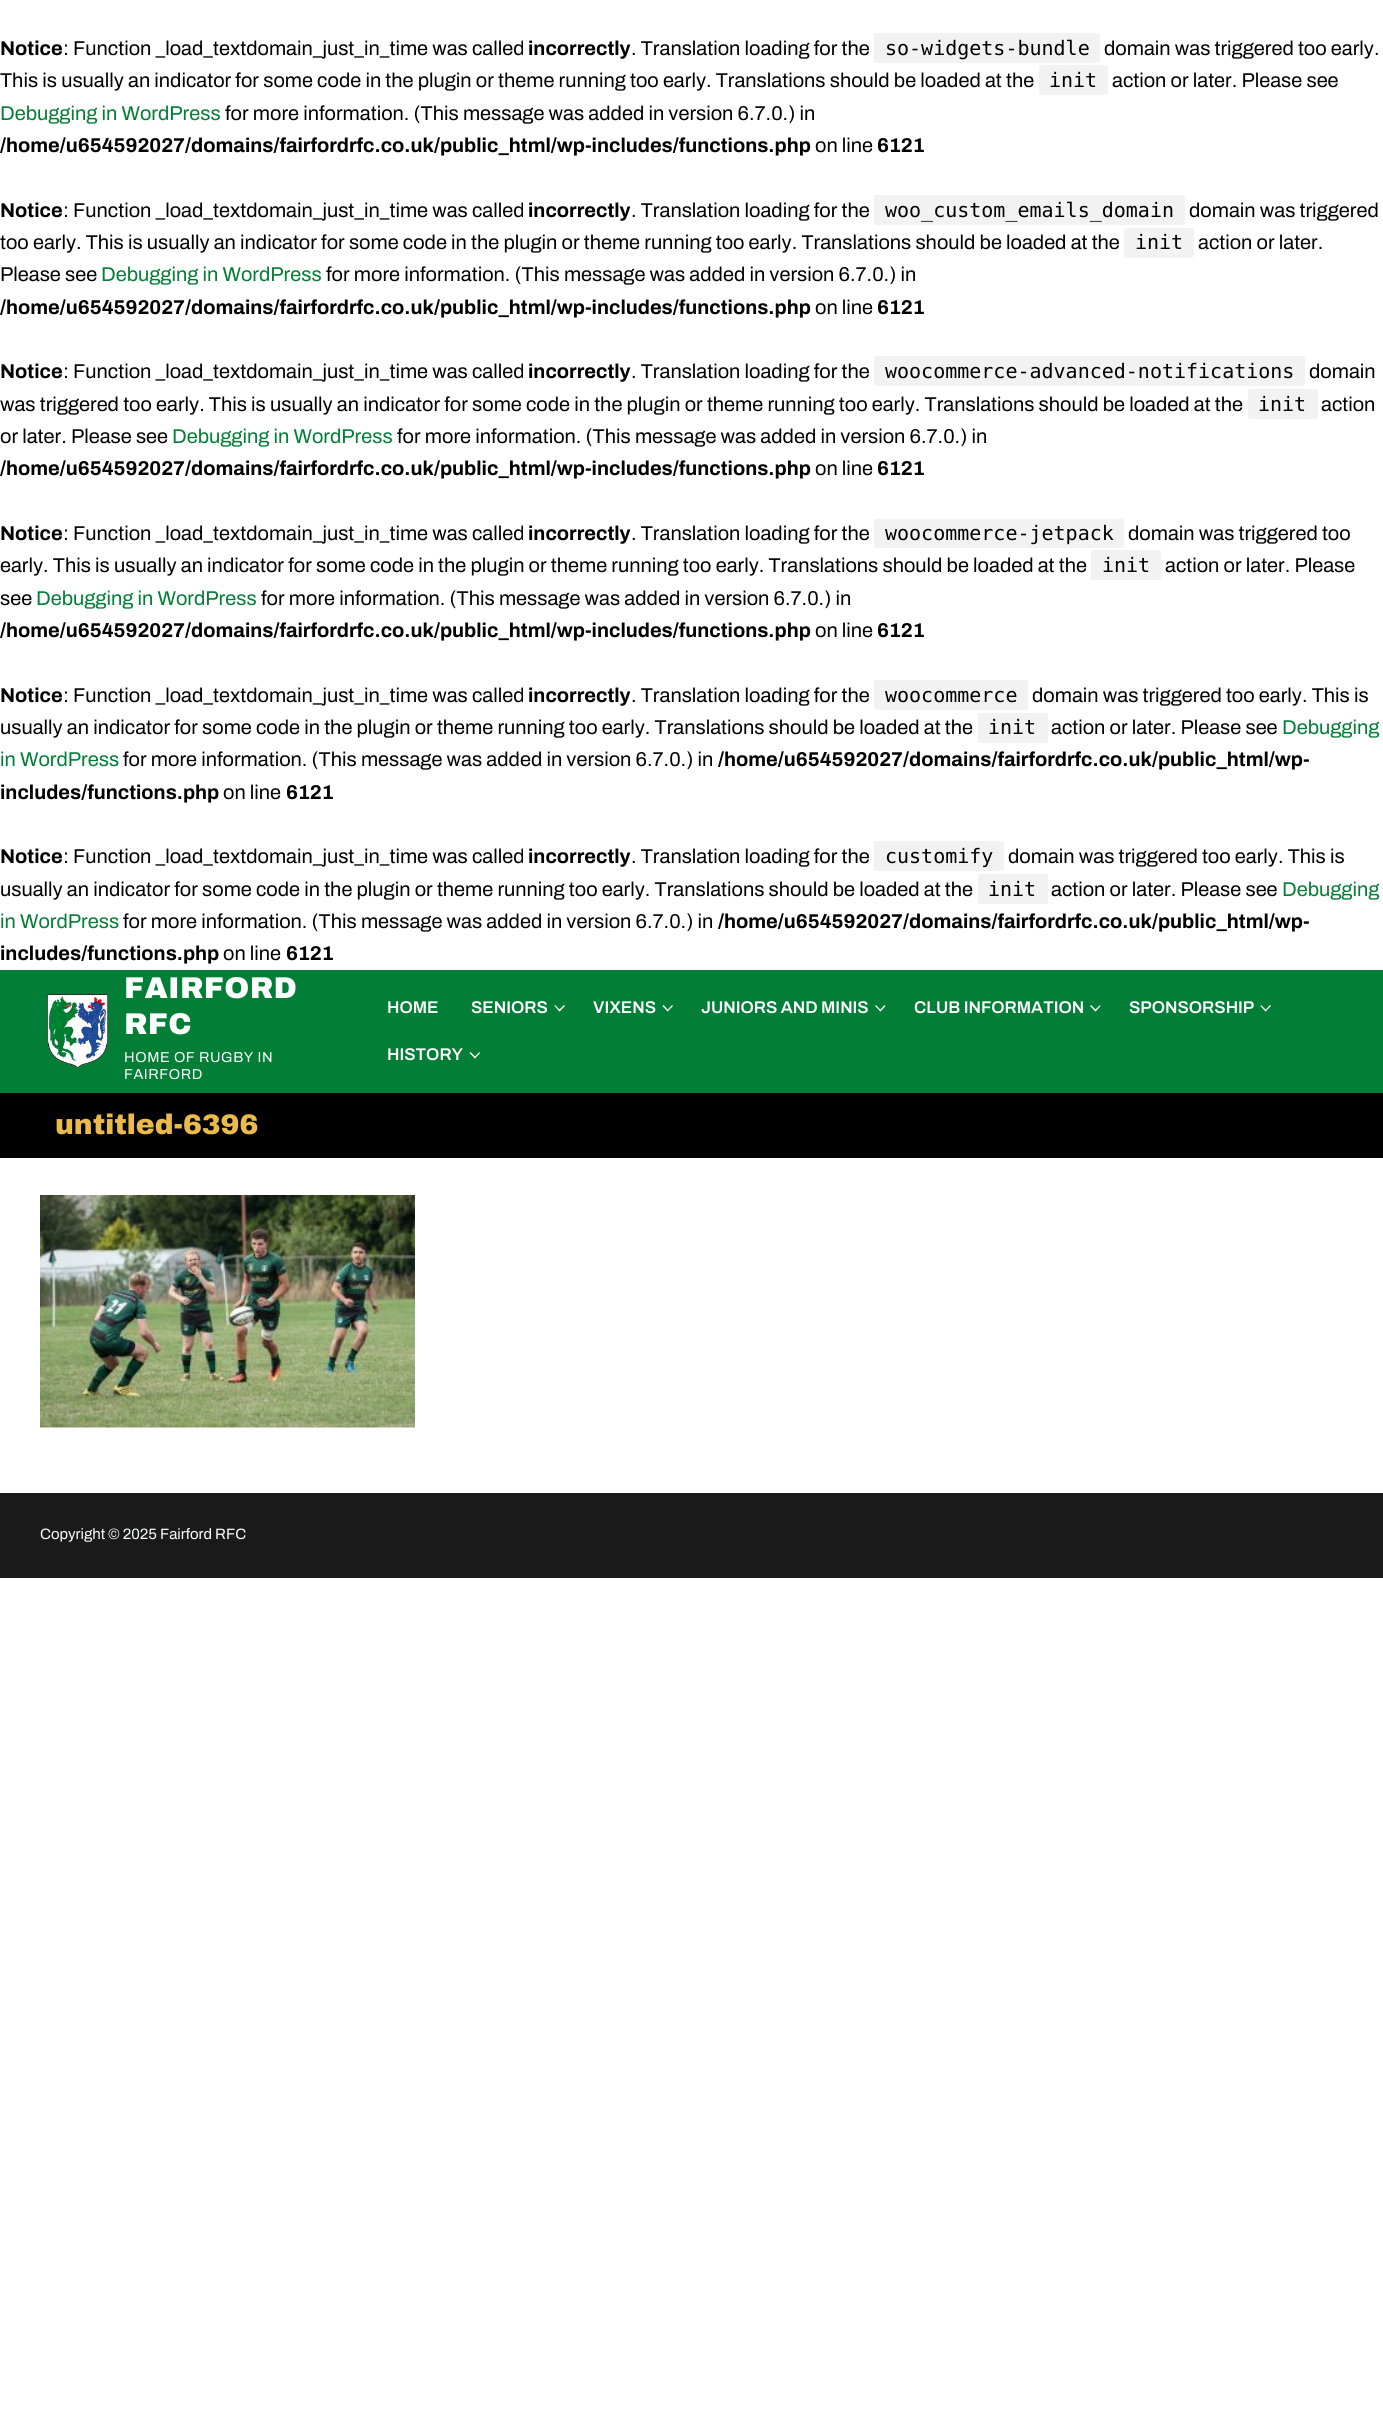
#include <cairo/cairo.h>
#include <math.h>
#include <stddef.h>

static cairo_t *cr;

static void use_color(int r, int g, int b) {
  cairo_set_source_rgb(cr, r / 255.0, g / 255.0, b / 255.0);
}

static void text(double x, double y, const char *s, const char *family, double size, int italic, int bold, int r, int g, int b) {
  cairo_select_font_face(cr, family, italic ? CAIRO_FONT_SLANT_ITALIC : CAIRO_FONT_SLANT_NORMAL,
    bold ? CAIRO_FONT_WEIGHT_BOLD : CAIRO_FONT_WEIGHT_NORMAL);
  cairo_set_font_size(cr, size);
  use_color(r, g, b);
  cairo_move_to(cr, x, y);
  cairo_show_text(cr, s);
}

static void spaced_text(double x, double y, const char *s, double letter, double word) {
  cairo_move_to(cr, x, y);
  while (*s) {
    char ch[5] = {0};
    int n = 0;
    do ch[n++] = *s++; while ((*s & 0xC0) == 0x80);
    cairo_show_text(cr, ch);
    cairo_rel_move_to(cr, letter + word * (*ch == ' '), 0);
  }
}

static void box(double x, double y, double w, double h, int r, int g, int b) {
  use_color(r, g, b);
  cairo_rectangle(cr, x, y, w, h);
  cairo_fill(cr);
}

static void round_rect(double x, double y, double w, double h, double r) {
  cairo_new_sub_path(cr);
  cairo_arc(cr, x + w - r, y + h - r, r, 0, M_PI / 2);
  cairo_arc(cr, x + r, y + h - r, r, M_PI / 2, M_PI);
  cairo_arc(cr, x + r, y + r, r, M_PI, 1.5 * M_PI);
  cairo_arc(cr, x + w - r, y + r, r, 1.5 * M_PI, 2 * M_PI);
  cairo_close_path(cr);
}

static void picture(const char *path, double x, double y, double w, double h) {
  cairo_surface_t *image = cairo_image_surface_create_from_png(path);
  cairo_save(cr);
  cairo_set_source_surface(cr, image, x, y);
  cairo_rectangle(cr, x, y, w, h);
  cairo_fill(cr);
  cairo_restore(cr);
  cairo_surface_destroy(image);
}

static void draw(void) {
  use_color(255, 255, 255);
  cairo_paint(cr);
  use_color(242, 242, 242);
  round_rect(874, 33, 226, 30, 2.5);
  cairo_fill(cr);
  round_rect(1039, 65, 69, 30, 2.5);
  cairo_fill(cr);
  round_rect(874, 195, 311, 30, 2.5);
  cairo_fill(cr);
  round_rect(1124, 228, 70, 30, 2.5);
  cairo_fill(cr);
  round_rect(874, 356, 431, 30, 2.5);
  cairo_fill(cr);
  round_rect(1248, 389, 70, 30, 2.5);
  cairo_fill(cr);
  round_rect(874, 519, 250, 29, 2.5);
  cairo_fill(cr);
  round_rect(1091, 550, 70, 30, 2.5);
  cairo_fill(cr);
  round_rect(874, 680, 154, 30, 2.5);
  cairo_fill(cr);
  round_rect(978, 713, 70, 30, 2.5);
  cairo_fill(cr);
  round_rect(874, 841, 130, 30, 2.5);
  cairo_fill(cr);
  round_rect(978, 874, 70, 30, 2.5);
  cairo_fill(cr);
  box(0, 970, 1383, 123, 2, 126, 54);
  picture("img_01.png", 47, 993, 61, 76);
  use_color(255, 255, 255);
  cairo_new_path(cr);
  cairo_move_to(cr, 559.5, 1011.5);
  cairo_line_to(cr, 554.5, 1006);
  cairo_line_to(cr, 555, 1005);
  cairo_line_to(cr, 560.5, 1010.5);
  cairo_close_path(cr);
  cairo_fill(cr);
  cairo_new_path(cr);
  cairo_move_to(cr, 559.5, 1011.5);
  cairo_line_to(cr, 558.5, 1010.5);
  cairo_line_to(cr, 564, 1005);
  cairo_line_to(cr, 565, 1006);
  cairo_close_path(cr);
  cairo_fill(cr);
  cairo_new_path(cr);
  cairo_move_to(cr, 667.5, 1011.5);
  cairo_line_to(cr, 662.5, 1006);
  cairo_line_to(cr, 663.5, 1005);
  cairo_line_to(cr, 668.5, 1010.5);
  cairo_close_path(cr);
  cairo_fill(cr);
  cairo_new_path(cr);
  cairo_move_to(cr, 667.5, 1011.5);
  cairo_line_to(cr, 667, 1010.5);
  cairo_line_to(cr, 672, 1005);
  cairo_line_to(cr, 673, 1006);
  cairo_close_path(cr);
  cairo_fill(cr);
  cairo_new_path(cr);
  cairo_move_to(cr, 880.5, 1011.5);
  cairo_line_to(cr, 875, 1006);
  cairo_line_to(cr, 876, 1005);
  cairo_line_to(cr, 881, 1010.5);
  cairo_close_path(cr);
  cairo_fill(cr);
  cairo_new_path(cr);
  cairo_move_to(cr, 880.5, 1011.5);
  cairo_line_to(cr, 879.5, 1010.5);
  cairo_line_to(cr, 884.5, 1005);
  cairo_line_to(cr, 885.5, 1006);
  cairo_close_path(cr);
  cairo_fill(cr);
  cairo_new_path(cr);
  cairo_move_to(cr, 1095.5, 1011.5);
  cairo_line_to(cr, 1090, 1006);
  cairo_line_to(cr, 1091, 1005);
  cairo_line_to(cr, 1096.5, 1010.5);
  cairo_close_path(cr);
  cairo_fill(cr);
  cairo_new_path(cr);
  cairo_move_to(cr, 1095.5, 1011.5);
  cairo_line_to(cr, 1094.5, 1010.5);
  cairo_line_to(cr, 1100, 1005);
  cairo_line_to(cr, 1100.5, 1006);
  cairo_close_path(cr);
  cairo_fill(cr);
  cairo_new_path(cr);
  cairo_move_to(cr, 1265.5, 1011.5);
  cairo_line_to(cr, 1260.5, 1006);
  cairo_line_to(cr, 1261, 1005);
  cairo_line_to(cr, 1266.5, 1010.5);
  cairo_close_path(cr);
  cairo_fill(cr);
  cairo_new_path(cr);
  cairo_move_to(cr, 1265.5, 1011.5);
  cairo_line_to(cr, 1265, 1010.5);
  cairo_line_to(cr, 1270, 1005);
  cairo_line_to(cr, 1271, 1006);
  cairo_close_path(cr);
  cairo_fill(cr);
  cairo_new_path(cr);
  cairo_move_to(cr, 475, 1058.5);
  cairo_line_to(cr, 469.5, 1053);
  cairo_line_to(cr, 470.5, 1052);
  cairo_line_to(cr, 476, 1057.5);
  cairo_close_path(cr);
  cairo_fill(cr);
  cairo_new_path(cr);
  cairo_move_to(cr, 475, 1058.5);
  cairo_line_to(cr, 474, 1057.5);
  cairo_line_to(cr, 479.5, 1052);
  cairo_line_to(cr, 480, 1053);
  cairo_close_path(cr);
  cairo_fill(cr);
  box(0, 1093, 1383, 65, 0, 0, 0);
  picture("img_02.png", 40, 1195, 375, 233);
  box(0, 1493, 1383, 85, 26, 26, 26);
  text(0, 55, "Notice", "Archivo", 20, 0, 1, 0, 0, 0);
  text(63, 55, ": Function _load_textdomain_just_in_time was called", "Archivo", 20, 0, 0, 0, 0, 0);
  text(528, 55, "incorrectly", "Archivo", 20, 0, 1, 0, 0, 0);
  text(631, 55, ". Translation loading for the", "Archivo", 20, 0, 0, 0, 0, 0);
  text(885, 55, "so-widgets-bundle", "DejaVu Sans Mono", 20, 0, 0, 0, 0, 0);
  text(1104, 55, "domain was triggered too early.", "Archivo", 20, 0, 0, 0, 0, 0);
  text(0, 87, "This is usually an indicator for some code in the plugin or theme running too early. Translations should be loaded at the", "Archivo", 20, 0, 0, 0, 0, 0);
  text(1049, 87, "init", "DejaVu Sans Mono", 20, 0, 0, 0, 0, 0);
  text(1112, 87, "action or later. Please see", "Archivo", 20, 0, 0, 0, 0, 0);
  text(0, 120, "Debugging in WordPress", "Archivo", 20, 0, 0, 2, 126, 54);
  text(225, 120, "for more information. (This message was added in version 6.7.0.) in", "Archivo", 20, 0, 0, 0, 0, 0);
  text(0, 152, "/home/u654592027/domains/fairfordrfc.co.uk/public_html/wp-includes/functions.php", "Archivo", 20, 0, 1, 0, 0, 0);
  text(815, 152, "on line", "Archivo", 20, 0, 0, 0, 0, 0);
  text(877, 152, "6121", "Archivo", 20, 0, 1, 0, 0, 0);
  text(0, 217, "Notice", "Archivo", 20, 0, 1, 0, 0, 0);
  text(63, 217, ": Function _load_textdomain_just_in_time was called", "Archivo", 20, 0, 0, 0, 0, 0);
  text(528, 217, "incorrectly", "Archivo", 20, 0, 1, 0, 0, 0);
  text(631, 217, ". Translation loading for the", "Archivo", 20, 0, 0, 0, 0, 0);
  text(885, 217, "woo_custom_emails_domain", "DejaVu Sans Mono", 20, 0, 0, 0, 0, 0);
  text(1189, 217, "domain was triggered", "Archivo", 20, 0, 0, 0, 0, 0);
  text(0, 249, "too early. This is usually an indicator for some code in the plugin or theme running too early. Translations should be loaded at the", "Archivo", 20, 0, 0, 0, 0, 0);
  text(1135, 249, "init", "DejaVu Sans Mono", 20, 0, 0, 0, 0, 0);
  text(1198, 249, "action or later.", "Archivo", 20, 0, 0, 0, 0, 0);
  text(0, 281, "Please see", "Archivo", 20, 0, 0, 0, 0, 0);
  text(101, 281, "Debugging in WordPress", "Archivo", 20, 0, 0, 2, 126, 54);
  text(326, 281, "for more information. (This message was added in version 6.7.0.) in", "Archivo", 20, 0, 0, 0, 0, 0);
  text(0, 314, "/home/u654592027/domains/fairfordrfc.co.uk/public_html/wp-includes/functions.php", "Archivo", 20, 0, 1, 0, 0, 0);
  text(815, 314, "on line", "Archivo", 20, 0, 0, 0, 0, 0);
  text(877, 314, "6121", "Archivo", 20, 0, 1, 0, 0, 0);
  text(0, 378, "Notice", "Archivo", 20, 0, 1, 0, 0, 0);
  text(63, 378, ": Function _load_textdomain_just_in_time was called", "Archivo", 20, 0, 0, 0, 0, 0);
  text(528, 378, "incorrectly", "Archivo", 20, 0, 1, 0, 0, 0);
  text(631, 378, ". Translation loading for the", "Archivo", 20, 0, 0, 0, 0, 0);
  text(885, 378, "woocommerce-advanced-notifications", "DejaVu Sans Mono", 20, 0, 0, 0, 0, 0);
  text(1309, 378, "domain", "Archivo", 20, 0, 0, 0, 0, 0);
  text(0, 411, "was triggered too early. This is usually an indicator for some code in the plugin or theme running too early. Translations should be loaded at the", "Archivo", 20, 0, 0, 0, 0, 0);
  text(1258, 411, "init", "DejaVu Sans Mono", 20, 0, 0, 0, 0, 0);
  text(1321, 411, "action", "Archivo", 20, 0, 0, 0, 0, 0);
  text(0, 443, "or later. Please see", "Archivo", 20, 0, 0, 0, 0, 0);
  text(172, 443, "Debugging in WordPress", "Archivo", 20, 0, 0, 2, 126, 54);
  text(397, 443, "for more information. (This message was added in version 6.7.0.) in", "Archivo", 20, 0, 0, 0, 0, 0);
  text(0, 475, "/home/u654592027/domains/fairfordrfc.co.uk/public_html/wp-includes/functions.php", "Archivo", 20, 0, 1, 0, 0, 0);
  text(815, 475, "on line", "Archivo", 20, 0, 0, 0, 0, 0);
  text(877, 475, "6121", "Archivo", 20, 0, 1, 0, 0, 0);
  text(0, 540, "Notice", "Archivo", 20, 0, 1, 0, 0, 0);
  text(63, 540, ": Function _load_textdomain_just_in_time was called", "Archivo", 20, 0, 0, 0, 0, 0);
  text(528, 540, "incorrectly", "Archivo", 20, 0, 1, 0, 0, 0);
  text(631, 540, ". Translation loading for the", "Archivo", 20, 0, 0, 0, 0, 0);
  text(885, 540, "woocommerce-jetpack", "DejaVu Sans Mono", 20, 0, 0, 0, 0, 0);
  text(1128, 540, "domain was triggered too", "Archivo", 20, 0, 0, 0, 0, 0);
  text(0, 572, "early. This is usually an indicator for some code in the plugin or theme running too early. Translations should be loaded at the", "Archivo", 20, 0, 0, 0, 0, 0);
  text(1102, 572, "init", "DejaVu Sans Mono", 20, 0, 0, 0, 0, 0);
  text(1165, 572, "action or later. Please", "Archivo", 20, 0, 0, 0, 0, 0);
  text(0, 605, "see", "Archivo", 20, 0, 0, 0, 0, 0);
  text(36, 605, "Debugging in WordPress", "Archivo", 20, 0, 0, 2, 126, 54);
  text(261, 605, "for more information. (This message was added in version 6.7.0.) in", "Archivo", 20, 0, 0, 0, 0, 0);
  text(0, 637, "/home/u654592027/domains/fairfordrfc.co.uk/public_html/wp-includes/functions.php", "Archivo", 20, 0, 1, 0, 0, 0);
  text(815, 637, "on line", "Archivo", 20, 0, 0, 0, 0, 0);
  text(877, 637, "6121", "Archivo", 20, 0, 1, 0, 0, 0);
  text(0, 702, "Notice", "Archivo", 20, 0, 1, 0, 0, 0);
  text(63, 702, ": Function _load_textdomain_just_in_time was called", "Archivo", 20, 0, 0, 0, 0, 0);
  text(528, 702, "incorrectly", "Archivo", 20, 0, 1, 0, 0, 0);
  text(631, 702, ". Translation loading for the", "Archivo", 20, 0, 0, 0, 0, 0);
  text(885, 702, "woocommerce", "DejaVu Sans Mono", 20, 0, 0, 0, 0, 0);
  text(1032, 702, "domain was triggered too early. This is", "Archivo", 20, 0, 0, 0, 0, 0);
  text(0, 734, "usually an indicator for some code in the plugin or theme running too early. Translations should be loaded at the", "Archivo", 20, 0, 0, 0, 0, 0);
  text(988, 734, "init", "DejaVu Sans Mono", 20, 0, 0, 0, 0, 0);
  text(1051, 734, "action or later. Please see", "Archivo", 20, 0, 0, 0, 0, 0);
  text(1282, 734, "Debugging", "Archivo", 20, 0, 0, 2, 126, 54);
  text(0, 766, "in WordPress", "Archivo", 20, 0, 0, 2, 126, 54);
  text(123, 766, "for more information. (This message was added in version 6.7.0.) in", "Archivo", 20, 0, 0, 0, 0, 0);
  text(718, 766, "/home/u654592027/domains/fairfordrfc.co.uk/public_html/wp-", "Archivo", 20, 0, 1, 0, 0, 0);
  text(0, 799, "includes/functions.php", "Archivo", 20, 0, 1, 0, 0, 0);
  text(223, 799, "on line", "Archivo", 20, 0, 0, 0, 0, 0);
  text(286, 799, "6121", "Archivo", 20, 0, 1, 0, 0, 0);
  text(0, 863, "Notice", "Archivo", 20, 0, 1, 0, 0, 0);
  text(63, 863, ": Function _load_textdomain_just_in_time was called", "Archivo", 20, 0, 0, 0, 0, 0);
  text(528, 863, "incorrectly", "Archivo", 20, 0, 1, 0, 0, 0);
  text(631, 863, ". Translation loading for the", "Archivo", 20, 0, 0, 0, 0, 0);
  text(885, 863, "customify", "DejaVu Sans Mono", 20, 0, 0, 0, 0, 0);
  text(1008, 863, "domain was triggered too early. This is", "Archivo", 20, 0, 0, 0, 0, 0);
  text(0, 896, "usually an indicator for some code in the plugin or theme running too early. Translations should be loaded at the", "Archivo", 20, 0, 0, 0, 0, 0);
  text(988, 896, "init", "DejaVu Sans Mono", 20, 0, 0, 0, 0, 0);
  text(1051, 896, "action or later. Please see", "Archivo", 20, 0, 0, 0, 0, 0);
  text(1282, 896, "Debugging", "Archivo", 20, 0, 0, 2, 126, 54);
  text(0, 928, "in WordPress", "Archivo", 20, 0, 0, 2, 126, 54);
  text(123, 928, "for more information. (This message was added in version 6.7.0.) in", "Archivo", 20, 0, 0, 0, 0, 0);
  text(718, 928, "/home/u654592027/domains/fairfordrfc.co.uk/public_html/wp-", "Archivo", 20, 0, 1, 0, 0, 0);
  text(0, 960, "includes/functions.php", "Archivo", 20, 0, 1, 0, 0, 0);
  text(223, 960, "on line", "Archivo", 20, 0, 0, 0, 0, 0);
  text(286, 960, "6121", "Archivo", 20, 0, 1, 0, 0, 0);
  cairo_select_font_face(cr, "Archivo Black", CAIRO_FONT_SLANT_NORMAL, CAIRO_FONT_WEIGHT_NORMAL);
  cairo_set_font_size(cr, 30);
  use_color(252, 254, 253);
  spaced_text(124, 998, "FAIRFORD", 0.5, 0);
  spaced_text(124, 1034, "RFC", 0.5, 0);
  cairo_select_font_face(cr, "Archivo", CAIRO_FONT_SLANT_NORMAL, CAIRO_FONT_WEIGHT_NORMAL);
  cairo_set_font_size(cr, 14.4);
  spaced_text(124, 1062, "HOME OF RUGBY IN", 0.6, 0);
  spaced_text(124, 1079, "FAIRFORD", 0.6, 0);
  text(387, 1013, "HOME", "Archivo SemiBold", 17, 0, 0, 252, 254, 253);
  text(471, 1013, "SENIORS", "Archivo SemiBold", 17, 0, 0, 252, 254, 253);
  text(593, 1013, "VIXENS", "Archivo SemiBold", 17, 0, 0, 252, 254, 253);
  text(701, 1013, "JUNIORS AND MINIS", "Archivo SemiBold", 17, 0, 0, 252, 254, 253);
  text(914, 1013, "CLUB INFORMATION", "Archivo SemiBold", 17, 0, 0, 252, 254, 253);
  text(1129, 1013, "SPONSORSHIP", "Archivo SemiBold", 17, 0, 0, 252, 254, 253);
  text(387, 1060, "HISTORY", "Archivo SemiBold", 17, 0, 0, 252, 254, 253);
  text(55, 1134, "untitled-6396", "Archivo Black", 28.25, 0, 0, 235, 186, 74);
  text(40, 1539, "Copyright © 2025 Fairford RFC", "Archivo", 15, 0, 0, 252, 254, 253);
}

int main(void) {
  cairo_surface_t *surface = cairo_image_surface_create(CAIRO_FORMAT_RGB24, 1383, 2419);
  cr = cairo_create(surface);
  cairo_font_options_t *options = cairo_font_options_create();
  cairo_font_options_set_hint_metrics(options, CAIRO_HINT_METRICS_OFF);
  cairo_font_options_set_hint_style(options, CAIRO_HINT_STYLE_NONE);
  cairo_set_font_options(cr, options);
  cairo_set_miter_limit(cr, 4);
  draw();
  cairo_surface_write_to_png(surface, "out.png");
  cairo_font_options_destroy(options);
  cairo_destroy(cr);
  cairo_surface_destroy(surface);
  return 0;
}
